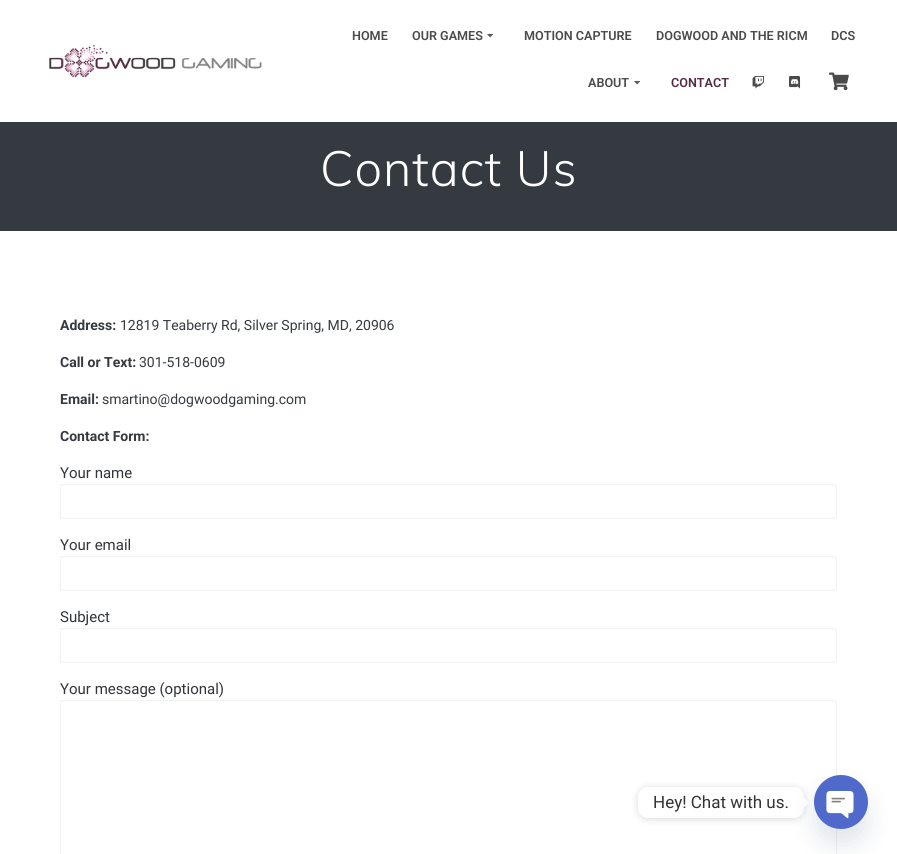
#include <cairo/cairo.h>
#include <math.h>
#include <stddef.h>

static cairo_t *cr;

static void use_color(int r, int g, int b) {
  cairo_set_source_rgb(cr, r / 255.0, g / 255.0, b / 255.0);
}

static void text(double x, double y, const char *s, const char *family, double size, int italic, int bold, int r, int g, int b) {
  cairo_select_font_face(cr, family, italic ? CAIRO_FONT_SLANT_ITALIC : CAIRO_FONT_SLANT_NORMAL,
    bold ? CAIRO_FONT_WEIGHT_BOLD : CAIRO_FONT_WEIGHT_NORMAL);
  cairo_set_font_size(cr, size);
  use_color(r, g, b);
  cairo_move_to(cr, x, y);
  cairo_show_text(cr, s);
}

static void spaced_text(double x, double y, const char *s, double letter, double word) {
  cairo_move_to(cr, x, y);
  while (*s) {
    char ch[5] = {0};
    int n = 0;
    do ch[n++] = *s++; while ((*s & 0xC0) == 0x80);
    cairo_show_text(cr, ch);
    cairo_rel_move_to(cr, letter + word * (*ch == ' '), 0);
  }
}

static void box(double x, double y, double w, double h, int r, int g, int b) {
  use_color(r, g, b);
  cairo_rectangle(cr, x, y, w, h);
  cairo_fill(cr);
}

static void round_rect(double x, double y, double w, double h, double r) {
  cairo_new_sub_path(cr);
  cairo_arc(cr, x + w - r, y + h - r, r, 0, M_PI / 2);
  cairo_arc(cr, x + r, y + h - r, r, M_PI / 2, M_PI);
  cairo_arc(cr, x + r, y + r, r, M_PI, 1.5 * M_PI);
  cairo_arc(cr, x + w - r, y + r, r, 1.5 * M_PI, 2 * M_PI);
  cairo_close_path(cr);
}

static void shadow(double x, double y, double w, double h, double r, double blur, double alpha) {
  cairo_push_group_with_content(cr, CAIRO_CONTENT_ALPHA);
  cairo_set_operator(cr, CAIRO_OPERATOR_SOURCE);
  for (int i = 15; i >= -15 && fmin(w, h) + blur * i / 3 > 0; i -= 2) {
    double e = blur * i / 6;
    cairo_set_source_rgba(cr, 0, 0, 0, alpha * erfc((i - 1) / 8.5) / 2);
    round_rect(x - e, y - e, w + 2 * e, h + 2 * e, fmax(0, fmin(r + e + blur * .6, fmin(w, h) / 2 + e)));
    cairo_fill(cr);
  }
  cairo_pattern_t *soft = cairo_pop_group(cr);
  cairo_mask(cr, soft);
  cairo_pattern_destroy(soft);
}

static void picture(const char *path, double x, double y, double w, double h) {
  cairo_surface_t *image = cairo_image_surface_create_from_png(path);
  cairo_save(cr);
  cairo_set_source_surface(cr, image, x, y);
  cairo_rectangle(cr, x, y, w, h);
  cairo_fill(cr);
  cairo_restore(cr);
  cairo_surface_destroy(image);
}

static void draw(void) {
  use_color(255, 255, 255);
  cairo_paint(cr);
  picture("img_01.png", 49, 45, 213, 33);
  picture("img_02.png", 487, 33, 6, 5);
  picture("img_02.png", 634, 80, 6, 5);
  picture("img_03.png", 752, 76, 12, 13);
  picture("img_04.png", 789, 76, 12, 13);
  picture("img_05.png", 829, 72, 20, 19);
  box(0, 122, 897, 109, 52, 58, 64);
  round_rect(60.5, 484.5, 776, 34, 2.5);
  use_color(241, 241, 241);
  cairo_set_line_width(cr, 1);
  cairo_stroke(cr);
  round_rect(60.5, 556.5, 776, 34, 2.5);
  cairo_stroke(cr);
  round_rect(60.5, 628.5, 776, 34, 2.5);
  cairo_stroke(cr);
  round_rect(60.5, 700.5, 776, 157, 2.5);
  cairo_stroke(cr);
  use_color(0, 0, 0);
  shadow(638, 788, 166, 31, 10, 4, 0.15);
  use_color(255, 255, 255);
  round_rect(638, 787, 166, 31, 10);
  cairo_fill(cr);
  cairo_new_path(cr);
  cairo_move_to(cr, 804, 807.5);
  cairo_line_to(cr, 804, 797.5);
  cairo_line_to(cr, 809, 802.5);
  cairo_close_path(cr);
  cairo_fill(cr);
  use_color(73, 104, 126);
  shadow(814, 791, 54, 54, 27, 12, 0.16);
  picture("img_06.png", 814, 775, 54, 54);
  text(352, 40, "HOME", "Roboto SemiBold", 12.6, 0, 0, 74, 74, 74);
  text(412, 40, "OUR GAMES", "Roboto SemiBold", 12.6, 0, 0, 74, 74, 74);
  text(524, 40, "MOTION CAPTURE", "Roboto SemiBold", 12.6, 0, 0, 74, 74, 74);
  text(656, 40, "DOGWOOD AND THE RICM", "Roboto SemiBold", 12.6, 0, 0, 74, 74, 74);
  text(831, 40, "DCS", "Roboto SemiBold", 12.6, 0, 0, 74, 74, 74);
  text(588, 87, "ABOUT", "Roboto SemiBold", 12.6, 0, 0, 74, 74, 74);
  text(671, 87, "CONTACT", "Roboto SemiBold", 12.6, 0, 0, 84, 42, 68);
  cairo_select_font_face(cr, "Muli Light", CAIRO_FONT_SLANT_NORMAL, CAIRO_FONT_WEIGHT_NORMAL);
  cairo_set_font_size(cr, 49);
  use_color(255, 255, 255);
  spaced_text(320, 186, "Contact Us", 1, 0);
  text(60, 330, "Address:", "Roboto", 14, 0, 1, 52, 58, 64);
  text(120, 330, "12819 Teaberry Rd, Silver Spring, MD, 20906", "Roboto", 14, 0, 0, 52, 58, 64);
  text(60, 367, "Call or Text:", "Roboto", 14, 0, 1, 52, 58, 64);
  text(139, 367, "301-518-0609", "Roboto", 14, 0, 0, 52, 58, 64);
  text(60, 404, "Email:", "Roboto", 14, 0, 1, 52, 58, 64);
  text(102, 404, "smartino@dogwoodgaming.com", "Roboto", 14, 0, 0, 52, 58, 64);
  text(60, 441, "Contact Form:", "Roboto", 14, 0, 1, 52, 58, 64);
  text(60, 478, "Your name", "Roboto", 15, 0, 0, 49, 52, 57);
  text(60, 550, "Your email", "Roboto", 15, 0, 0, 49, 52, 57);
  text(60, 622, "Subject", "Roboto", 15, 0, 0, 49, 52, 57);
  text(60, 694, "Your message (optional)", "Roboto", 15, 0, 0, 49, 52, 57);
  text(653, 808, "Hey! Chat with us.", "Roboto", 17, 0, 0, 51, 51, 51);
}

int main(void) {
  cairo_surface_t *surface = cairo_image_surface_create(CAIRO_FORMAT_RGB24, 897, 854);
  cr = cairo_create(surface);
  cairo_font_options_t *options = cairo_font_options_create();
  cairo_font_options_set_hint_metrics(options, CAIRO_HINT_METRICS_OFF);
  cairo_font_options_set_hint_style(options, CAIRO_HINT_STYLE_NONE);
  cairo_set_font_options(cr, options);
  cairo_set_miter_limit(cr, 4);
  draw();
  cairo_surface_write_to_png(surface, "out.png");
  cairo_font_options_destroy(options);
  cairo_destroy(cr);
  cairo_surface_destroy(surface);
  return 0;
}
